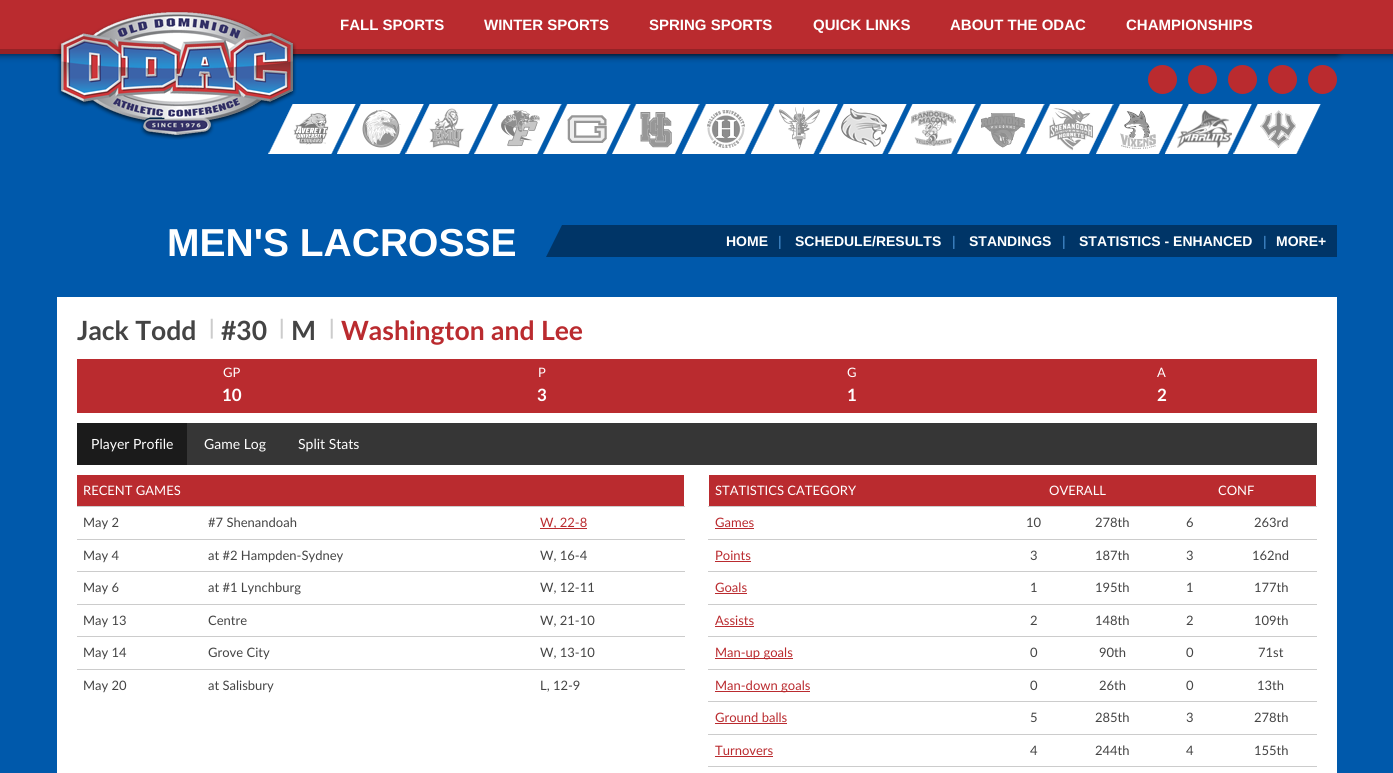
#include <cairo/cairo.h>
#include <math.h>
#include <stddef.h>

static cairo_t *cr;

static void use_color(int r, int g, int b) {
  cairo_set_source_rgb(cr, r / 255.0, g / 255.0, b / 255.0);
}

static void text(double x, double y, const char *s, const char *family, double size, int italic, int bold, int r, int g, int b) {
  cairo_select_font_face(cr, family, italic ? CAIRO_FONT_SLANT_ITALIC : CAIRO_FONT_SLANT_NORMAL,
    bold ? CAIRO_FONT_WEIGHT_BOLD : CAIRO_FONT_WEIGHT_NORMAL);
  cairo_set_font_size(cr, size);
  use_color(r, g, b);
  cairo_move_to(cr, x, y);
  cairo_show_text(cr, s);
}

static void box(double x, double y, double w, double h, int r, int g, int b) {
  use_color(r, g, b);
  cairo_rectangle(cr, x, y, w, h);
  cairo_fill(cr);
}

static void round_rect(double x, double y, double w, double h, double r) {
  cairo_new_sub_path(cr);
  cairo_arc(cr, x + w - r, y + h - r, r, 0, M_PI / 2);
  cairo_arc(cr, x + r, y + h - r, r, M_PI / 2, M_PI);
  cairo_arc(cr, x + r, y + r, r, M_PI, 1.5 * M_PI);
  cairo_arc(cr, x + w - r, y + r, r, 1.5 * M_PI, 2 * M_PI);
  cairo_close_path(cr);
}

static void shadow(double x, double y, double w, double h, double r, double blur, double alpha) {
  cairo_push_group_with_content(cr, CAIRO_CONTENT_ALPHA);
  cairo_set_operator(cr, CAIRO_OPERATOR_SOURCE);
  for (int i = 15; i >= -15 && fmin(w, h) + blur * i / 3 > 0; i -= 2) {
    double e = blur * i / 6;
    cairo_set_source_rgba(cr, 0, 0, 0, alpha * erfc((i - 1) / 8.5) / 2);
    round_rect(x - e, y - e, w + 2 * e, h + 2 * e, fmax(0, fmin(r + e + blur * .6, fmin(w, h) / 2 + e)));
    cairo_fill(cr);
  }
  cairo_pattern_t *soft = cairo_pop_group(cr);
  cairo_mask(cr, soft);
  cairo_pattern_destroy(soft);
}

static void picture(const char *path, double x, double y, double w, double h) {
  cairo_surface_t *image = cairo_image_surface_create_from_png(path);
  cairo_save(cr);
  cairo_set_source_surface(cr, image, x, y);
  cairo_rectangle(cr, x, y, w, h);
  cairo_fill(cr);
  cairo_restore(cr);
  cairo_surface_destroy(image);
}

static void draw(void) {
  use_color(0, 89, 171);
  cairo_paint(cr);
  use_color(186, 43, 47);
  cairo_arc(cr, 1162.5, 79.5, 14.5, 0, 2 * M_PI);
  cairo_fill(cr);
  cairo_arc(cr, 1202.5, 79.5, 14.5, 0, 2 * M_PI);
  cairo_fill(cr);
  cairo_arc(cr, 1242.5, 79.5, 14.5, 0, 2 * M_PI);
  cairo_fill(cr);
  cairo_arc(cr, 1282.5, 79.5, 14.5, 0, 2 * M_PI);
  cairo_fill(cr);
  cairo_arc(cr, 1322.5, 79.5, 14.5, 0, 2 * M_PI);
  cairo_fill(cr);
  use_color(0, 0, 0);
  shadow(57, 0, 1280, 54, 0, 4, 0.75);
  shadow(-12, 0, 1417, 54, 0, 4, 0.75);
  box(0, 0, 1393, 49, 186, 43, 47);
  box(0, 49, 1393, 5, 149, 34, 38);
  picture("img_02.png", 268, 104, 71, 50);
  picture("img_01.png", 57, 10, 240, 130);
  picture("img_03.png", 339, 104, 72, 50);
  picture("img_04.png", 411, 104, 72, 50);
  picture("img_05.png", 483, 104, 72, 50);
  picture("img_06.png", 555, 104, 72, 50);
  picture("img_07.png", 627, 104, 72, 50);
  picture("img_08.png", 699, 104, 72, 50);
  picture("img_09.png", 771, 104, 65, 50);
  picture("img_10.png", 836, 104, 65, 50);
  picture("img_11.png", 901, 104, 65, 50);
  picture("img_12.png", 966, 104, 65, 50);
  picture("img_13.png", 1031, 104, 65, 50);
  picture("img_14.png", 1096, 104, 65, 50);
  picture("img_15.png", 1161, 104, 95, 50);
  picture("img_16.png", 1256, 104, 65, 50);
  box(546, 225, 791, 32, 0, 53, 103);
  use_color(0, 89, 171);
  cairo_new_path(cr);
  cairo_move_to(cr, 546, 225);
  cairo_line_to(cr, 562, 225);
  cairo_line_to(cr, 546, 257);
  cairo_close_path(cr);
  cairo_fill(cr);
  box(57, 297, 1280, 476, 255, 255, 255);
  box(77, 359, 1240, 54, 186, 43, 47);
  box(187, 423, 1130, 42, 54, 54, 54);
  box(77, 423, 110, 42, 27, 27, 27);
  box(77, 475, 607, 31, 186, 43, 47);
  box(77, 506, 608, 1, 204, 204, 204);
  box(540, 528, 47, 1, 186, 43, 47);
  box(77, 539, 608, 1, 204, 204, 204);
  box(77, 571, 608, 1, 204, 204, 204);
  box(77, 604, 608, 1, 204, 204, 204);
  box(77, 636, 608, 1, 204, 204, 204);
  box(77, 669, 608, 1, 204, 204, 204);
  box(709, 475, 607, 31, 186, 43, 47);
  box(715, 528, 39, 1, 186, 43, 47);
  box(708, 506, 609, 1, 204, 204, 204);
  box(715, 561, 36, 1, 186, 43, 47);
  box(708, 539, 609, 1, 204, 204, 204);
  box(715, 593, 32, 1, 186, 43, 47);
  box(708, 571, 609, 1, 204, 204, 204);
  box(715, 626, 39, 1, 186, 43, 47);
  box(708, 604, 609, 1, 204, 204, 204);
  box(715, 658, 78, 1, 186, 43, 47);
  box(708, 636, 609, 1, 204, 204, 204);
  box(715, 691, 95, 1, 186, 43, 47);
  box(708, 669, 609, 1, 204, 204, 204);
  box(715, 723, 72, 1, 186, 43, 47);
  box(708, 701, 609, 1, 204, 204, 204);
  box(715, 756, 58, 1, 186, 43, 47);
  box(708, 734, 609, 1, 204, 204, 204);
  box(708, 766, 609, 1, 204, 204, 204);
  text(340, 30, "FALL SPORTS", "Liberation Sans", 15, 0, 1, 255, 255, 255);
  text(484, 30, "WINTER SPORTS", "Liberation Sans", 15, 0, 1, 255, 255, 255);
  text(649, 30, "SPRING SPORTS", "Liberation Sans", 15, 0, 1, 255, 255, 255);
  text(813, 30, "QUICK LINKS", "Liberation Sans", 15, 0, 1, 255, 255, 255);
  text(950, 30, "ABOUT THE ODAC", "Liberation Sans", 15, 0, 1, 255, 255, 255);
  text(1126, 30, "CHAMPIONSHIPS", "Liberation Sans", 15, 0, 1, 255, 255, 255);
  text(167, 256, "MEN'S LACROSSE", "Liberation Sans", 39, 0, 1, 255, 255, 255);
  text(726, 246, "HOME", "Liberation Sans", 14, 0, 1, 255, 255, 255);
  text(778, 246, "|", "Liberation Sans", 14, 0, 0, 74, 147, 214);
  text(795, 246, "SCHEDULE/RESULTS", "Liberation Sans", 14, 0, 1, 255, 255, 255);
  text(952, 246, "|", "Liberation Sans", 14, 0, 0, 74, 147, 214);
  text(969, 246, "STANDINGS", "Liberation Sans", 14, 0, 1, 255, 255, 255);
  text(1062, 246, "|", "Liberation Sans", 14, 0, 0, 74, 147, 214);
  text(1079, 246, "STATISTICS - ENHANCED", "Liberation Sans", 14, 0, 1, 255, 255, 255);
  text(1263, 246, "|", "Liberation Sans", 14, 0, 0, 74, 147, 214);
  text(1276, 246, "MORE+", "Liberation Sans", 14, 0, 1, 255, 255, 255);
  text(77, 340, "Jack Todd", "Lato", 26.5, 0, 1, 68, 68, 68);
  text(209, 335, "|", "Lato", 21, 0, 1, 204, 204, 204);
  text(221, 340, "#30", "Lato", 26.5, 0, 1, 68, 68, 68);
  text(279, 335, "|", "Lato", 21, 0, 1, 204, 204, 204);
  text(291, 340, "M", "Lato", 26.5, 0, 1, 68, 68, 68);
  text(329, 335, "|", "Lato", 21, 0, 1, 204, 204, 204);
  text(341, 340, "Washington and Lee", "Lato", 26.5, 0, 1, 186, 43, 47);
  text(223, 377, "GP", "Lato", 13, 0, 0, 255, 255, 255);
  text(222, 401, "10", "Lato", 17, 0, 1, 255, 255, 255);
  text(538, 377, "P", "Lato", 13, 0, 0, 255, 255, 255);
  text(537, 401, "3", "Lato", 17, 0, 1, 255, 255, 255);
  text(847, 377, "G", "Lato", 13, 0, 0, 255, 255, 255);
  text(847, 401, "1", "Lato", 17, 0, 1, 255, 255, 255);
  text(1157, 377, "A", "Lato", 13, 0, 0, 255, 255, 255);
  text(1157, 401, "2", "Lato", 17, 0, 1, 255, 255, 255);
  text(91, 449, "Player Profile", "Lato", 14, 0, 0, 255, 255, 255);
  text(204, 449, "Game Log", "Lato", 14, 0, 0, 255, 255, 255);
  text(298, 449, "Split Stats", "Lato", 14, 0, 0, 255, 255, 255);
  text(83, 495, "RECENT GAMES", "Lato", 13, 0, 0, 255, 255, 255);
  text(83, 527, "May 2", "Lato", 13, 0, 0, 68, 68, 68);
  text(208, 527, "#7 Shenandoah", "Lato", 13, 0, 0, 68, 68, 68);
  text(540, 527, "W, 22-8", "Lato", 13, 0, 0, 186, 43, 47);
  text(83, 560, "May 4", "Lato", 13, 0, 0, 68, 68, 68);
  text(208, 560, "at #2 Hampden-Sydney", "Lato", 13, 0, 0, 68, 68, 68);
  text(540, 560, "W, 16-4", "Lato", 13, 0, 0, 68, 68, 68);
  text(83, 592, "May 6", "Lato", 13, 0, 0, 68, 68, 68);
  text(208, 592, "at #1 Lynchburg", "Lato", 13, 0, 0, 68, 68, 68);
  text(540, 592, "W, 12-11", "Lato", 13, 0, 0, 68, 68, 68);
  text(83, 625, "May 13", "Lato", 13, 0, 0, 68, 68, 68);
  text(208, 625, "Centre", "Lato", 13, 0, 0, 68, 68, 68);
  text(540, 625, "W, 21-10", "Lato", 13, 0, 0, 68, 68, 68);
  text(83, 657, "May 14", "Lato", 13, 0, 0, 68, 68, 68);
  text(208, 657, "Grove City", "Lato", 13, 0, 0, 68, 68, 68);
  text(540, 657, "W, 13-10", "Lato", 13, 0, 0, 68, 68, 68);
  text(83, 690, "May 20", "Lato", 13, 0, 0, 68, 68, 68);
  text(208, 690, "at Salisbury", "Lato", 13, 0, 0, 68, 68, 68);
  text(540, 690, "L, 12-9", "Lato", 13, 0, 0, 68, 68, 68);
  text(715, 495, "STATISTICS CATEGORY", "Lato", 13, 0, 0, 255, 255, 255);
  text(1049, 495, "OVERALL", "Lato", 13, 0, 0, 255, 255, 255);
  text(1218, 495, "CONF", "Lato", 13, 0, 0, 255, 255, 255);
  text(715, 527, "Games", "Lato", 13, 0, 0, 186, 43, 47);
  text(1026, 527, "10", "Lato", 13, 0, 0, 68, 68, 68);
  text(1095, 527, "278th", "Lato", 13, 0, 0, 68, 68, 68);
  text(1186, 527, "6", "Lato", 13, 0, 0, 68, 68, 68);
  text(1254, 527, "263rd", "Lato", 13, 0, 0, 68, 68, 68);
  text(715, 560, "Points", "Lato", 13, 0, 0, 186, 43, 47);
  text(1030, 560, "3", "Lato", 13, 0, 0, 68, 68, 68);
  text(1095, 560, "187th", "Lato", 13, 0, 0, 68, 68, 68);
  text(1186, 560, "3", "Lato", 13, 0, 0, 68, 68, 68);
  text(1252, 560, "162nd", "Lato", 13, 0, 0, 68, 68, 68);
  text(715, 592, "Goals", "Lato", 13, 0, 0, 186, 43, 47);
  text(1030, 592, "1", "Lato", 13, 0, 0, 68, 68, 68);
  text(1095, 592, "195th", "Lato", 13, 0, 0, 68, 68, 68);
  text(1186, 592, "1", "Lato", 13, 0, 0, 68, 68, 68);
  text(1254, 592, "177th", "Lato", 13, 0, 0, 68, 68, 68);
  text(715, 625, "Assists", "Lato", 13, 0, 0, 186, 43, 47);
  text(1030, 625, "2", "Lato", 13, 0, 0, 68, 68, 68);
  text(1095, 625, "148th", "Lato", 13, 0, 0, 68, 68, 68);
  text(1186, 625, "2", "Lato", 13, 0, 0, 68, 68, 68);
  text(1254, 625, "109th", "Lato", 13, 0, 0, 68, 68, 68);
  text(715, 657, "Man-up goals", "Lato", 13, 0, 0, 186, 43, 47);
  text(1030, 657, "0", "Lato", 13, 0, 0, 68, 68, 68);
  text(1099, 657, "90th", "Lato", 13, 0, 0, 68, 68, 68);
  text(1186, 657, "0", "Lato", 13, 0, 0, 68, 68, 68);
  text(1258, 657, "71st", "Lato", 13, 0, 0, 68, 68, 68);
  text(715, 690, "Man-down goals", "Lato", 13, 0, 0, 186, 43, 47);
  text(1030, 690, "0", "Lato", 13, 0, 0, 68, 68, 68);
  text(1099, 690, "26th", "Lato", 13, 0, 0, 68, 68, 68);
  text(1186, 690, "0", "Lato", 13, 0, 0, 68, 68, 68);
  text(1257, 690, "13th", "Lato", 13, 0, 0, 68, 68, 68);
  text(715, 722, "Ground balls", "Lato", 13, 0, 0, 186, 43, 47);
  text(1030, 722, "5", "Lato", 13, 0, 0, 68, 68, 68);
  text(1095, 722, "285th", "Lato", 13, 0, 0, 68, 68, 68);
  text(1186, 722, "3", "Lato", 13, 0, 0, 68, 68, 68);
  text(1254, 722, "278th", "Lato", 13, 0, 0, 68, 68, 68);
  text(715, 755, "Turnovers", "Lato", 13, 0, 0, 186, 43, 47);
  text(1030, 755, "4", "Lato", 13, 0, 0, 68, 68, 68);
  text(1095, 755, "244th", "Lato", 13, 0, 0, 68, 68, 68);
  text(1186, 755, "4", "Lato", 13, 0, 0, 68, 68, 68);
  text(1254, 755, "155th", "Lato", 13, 0, 0, 68, 68, 68);
}

int main(void) {
  cairo_surface_t *surface = cairo_image_surface_create(CAIRO_FORMAT_RGB24, 1393, 773);
  cr = cairo_create(surface);
  cairo_font_options_t *options = cairo_font_options_create();
  cairo_font_options_set_hint_metrics(options, CAIRO_HINT_METRICS_OFF);
  cairo_font_options_set_hint_style(options, CAIRO_HINT_STYLE_NONE);
  cairo_set_font_options(cr, options);
  cairo_set_miter_limit(cr, 4);
  draw();
  cairo_surface_write_to_png(surface, "out.png");
  cairo_font_options_destroy(options);
  cairo_destroy(cr);
  cairo_surface_destroy(surface);
  return 0;
}
